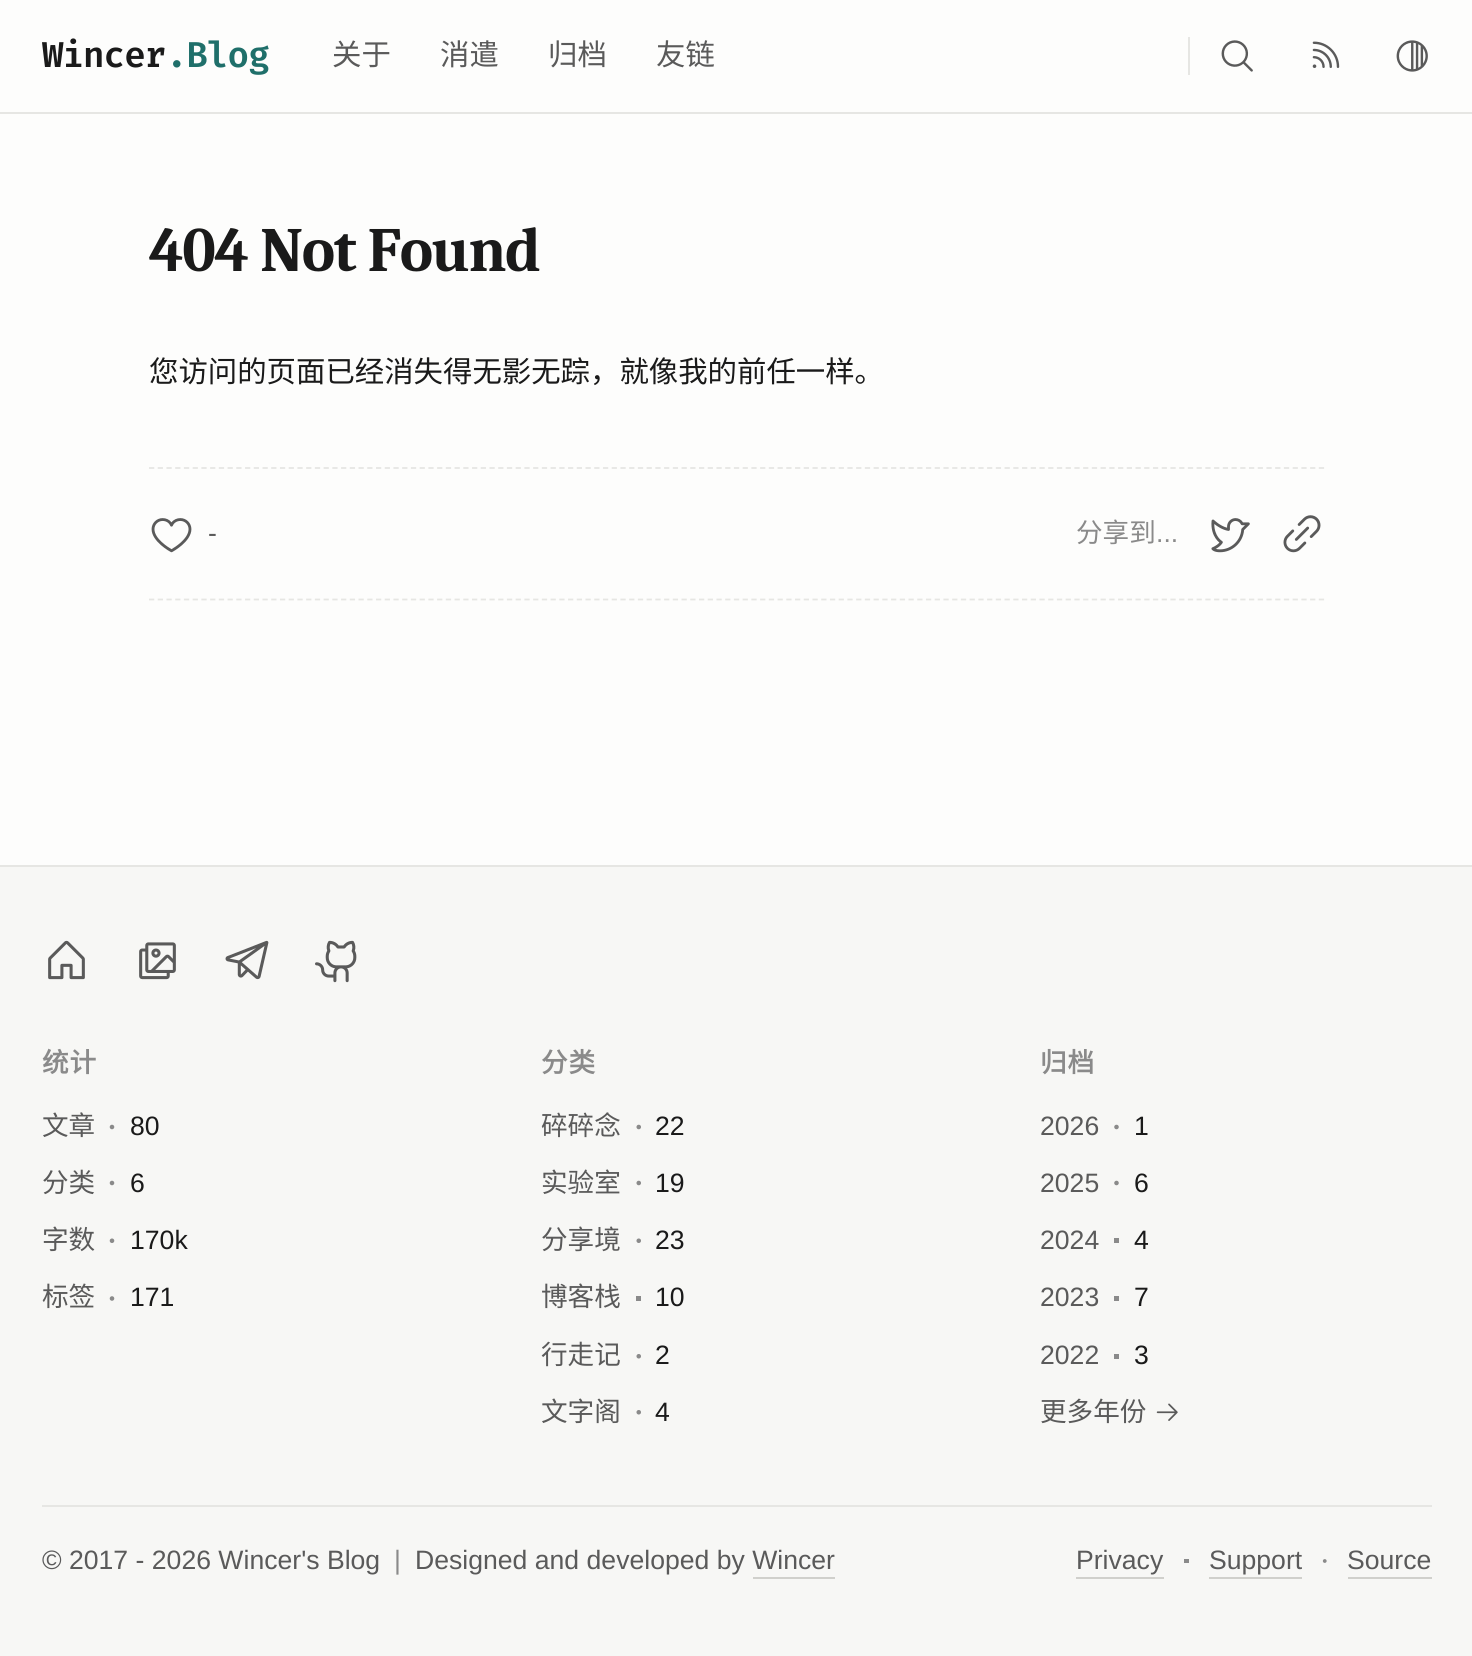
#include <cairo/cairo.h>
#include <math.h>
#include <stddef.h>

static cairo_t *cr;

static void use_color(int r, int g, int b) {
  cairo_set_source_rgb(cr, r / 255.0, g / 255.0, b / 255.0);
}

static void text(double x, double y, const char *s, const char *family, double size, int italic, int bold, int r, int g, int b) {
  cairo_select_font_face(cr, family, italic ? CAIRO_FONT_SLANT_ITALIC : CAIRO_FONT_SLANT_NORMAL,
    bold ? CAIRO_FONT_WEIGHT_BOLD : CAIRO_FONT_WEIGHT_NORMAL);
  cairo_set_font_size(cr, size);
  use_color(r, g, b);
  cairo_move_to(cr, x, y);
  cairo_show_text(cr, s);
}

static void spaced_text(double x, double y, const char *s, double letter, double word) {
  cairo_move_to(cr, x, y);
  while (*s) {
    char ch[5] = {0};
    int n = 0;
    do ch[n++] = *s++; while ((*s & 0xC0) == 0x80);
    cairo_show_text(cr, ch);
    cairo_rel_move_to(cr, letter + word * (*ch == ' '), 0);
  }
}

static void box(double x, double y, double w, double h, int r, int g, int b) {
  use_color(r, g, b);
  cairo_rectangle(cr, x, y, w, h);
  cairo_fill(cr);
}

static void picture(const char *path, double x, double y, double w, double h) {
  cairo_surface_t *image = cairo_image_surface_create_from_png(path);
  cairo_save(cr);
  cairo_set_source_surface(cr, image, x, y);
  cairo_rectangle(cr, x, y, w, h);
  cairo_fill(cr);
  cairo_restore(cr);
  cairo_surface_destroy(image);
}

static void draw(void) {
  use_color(253, 253, 252);
  cairo_paint(cr);
  box(0, 112, 1472, 2, 230, 230, 227);
  box(1188, 37, 2, 38, 230, 230, 227);
  picture("img_01.png", 1221, 40, 32, 32);
  picture("img_02.png", 1312, 41, 28, 27);
  picture("img_03.png", 1396, 40, 32, 32);
  cairo_new_path(cr);
  cairo_move_to(cr, 149, 468);
  cairo_line_to(cr, 1325, 468);
  cairo_set_line_width(cr, 1.8);
  cairo_set_dash(cr, (double[]){5.25, 3.48}, 2, 0);
  cairo_stroke(cr);
  cairo_new_path(cr);
  cairo_move_to(cr, 149, 599.5);
  cairo_line_to(cr, 1325, 599.5);
  cairo_stroke(cr);
  picture("img_04.png", 151, 518, 41, 35);
  picture("img_05.png", 1211, 518, 39, 35);
  picture("img_06.png", 1283, 515, 38, 38);
  box(0, 867, 1472, 789, 247, 247, 245);
  box(0, 865, 1472, 2, 230, 230, 227);
  picture("img_07.png", 48, 940, 37, 40);
  picture("img_08.png", 139, 942, 37, 38);
  picture("img_09.png", 225, 940, 44, 40);
  picture("img_10.png", 315, 940, 42, 43);
  picture("img_11.png", 109, 1124, 6, 6);
  picture("img_11.png", 109, 1180, 6, 6);
  picture("img_12.png", 109, 1238, 6, 5);
  picture("img_13.png", 109, 1296, 6, 5);
  picture("img_14.png", 636, 1124, 5, 6);
  picture("img_14.png", 636, 1180, 5, 6);
  picture("img_15.png", 636, 1238, 5, 5);
  box(636, 1296, 5, 5, 138, 138, 138);
  picture("img_16.png", 636, 1354, 5, 5);
  picture("img_16.png", 636, 1410, 5, 5);
  picture("img_17.png", 1114, 1124, 5, 6);
  picture("img_17.png", 1114, 1180, 5, 6);
  box(1114, 1238, 5, 5, 138, 138, 138);
  box(1114, 1296, 5, 5, 138, 138, 138);
  box(1114, 1354, 5, 5, 138, 138, 138);
  picture("img_18.png", 1156, 1403, 22, 18);
  box(42, 1505, 1390, 2, 230, 230, 227);
  box(753, 1577, 82, 2, 208, 208, 204);
  box(1076, 1577, 88, 2, 208, 208, 204);
  box(1184, 1559, 5, 4, 138, 138, 138);
  box(1209, 1577, 93, 2, 208, 208, 204);
  picture("img_19.png", 1322, 1559, 5, 4);
  box(1348, 1577, 84, 2, 208, 208, 204);
  cairo_select_font_face(cr, "Fira Code SemiBold", CAIRO_FONT_SLANT_NORMAL, CAIRO_FONT_WEIGHT_NORMAL);
  cairo_set_font_size(cr, 35);
  use_color(26, 26, 26);
  spaced_text(42, 67, "Wincer", -1, 0);
  use_color(31, 111, 106);
  spaced_text(166, 67, ".Blog", -1, 0);
  text(332, 65, "关于", "Noto Sans CJK SC", 29.4, 0, 0, 90, 90, 90);
  text(440, 65, "消遣", "Noto Sans CJK SC", 29.4, 0, 0, 90, 90, 90);
  text(548, 65, "归档", "Noto Sans CJK SC", 29.4, 0, 0, 90, 90, 90);
  text(656, 65, "友链", "Noto Sans CJK SC", 29.4, 0, 0, 90, 90, 90);
  cairo_select_font_face(cr, "Caladea", CAIRO_FONT_SLANT_NORMAL, CAIRO_FONT_WEIGHT_BOLD);
  cairo_set_font_size(cr, 63);
  use_color(26, 26, 26);
  spaced_text(149, 271, "404 Not Found", -1.5, 0);
  text(149, 382, "您访问的页面已经消失得无影无踪，就像我的前任一样。", "Noto Sans CJK SC", 29.4, 0, 0, 26, 26, 26);
  text(208, 542, "-", "Liberation Sans", 26.6, 0, 0, 90, 90, 90);
  text(1076, 542, "分享到", "Noto Sans CJK SC", 26.6, 0, 0, 138, 138, 138);
  text(1156, 542, "...", "Liberation Sans", 26.6, 0, 0, 138, 138, 138);
  cairo_select_font_face(cr, "Noto Sans CJK SC", CAIRO_FONT_SLANT_NORMAL, CAIRO_FONT_WEIGHT_BOLD);
  spaced_text(42, 1072, "统计", 1, 0);
  text(42, 1135, "文章", "Noto Sans CJK SC", 26.6, 0, 0, 90, 90, 90);
  text(130, 1135, "80", "Liberation Sans", 26.6, 0, 0, 26, 26, 26);
  text(42, 1192, "分类", "Noto Sans CJK SC", 26.6, 0, 0, 90, 90, 90);
  text(130, 1192, "6", "Liberation Sans", 26.6, 0, 0, 26, 26, 26);
  text(42, 1249, "字数", "Noto Sans CJK SC", 26.6, 0, 0, 90, 90, 90);
  text(130, 1249, "170k", "Liberation Sans", 26.6, 0, 0, 26, 26, 26);
  text(42, 1306, "标签", "Noto Sans CJK SC", 26.6, 0, 0, 90, 90, 90);
  text(130, 1306, "171", "Liberation Sans", 26.6, 0, 0, 26, 26, 26);
  cairo_select_font_face(cr, "Noto Sans CJK SC", CAIRO_FONT_SLANT_NORMAL, CAIRO_FONT_WEIGHT_BOLD);
  use_color(138, 138, 138);
  spaced_text(541, 1072, "分类", 1, 0);
  text(541, 1135, "碎碎念", "Noto Sans CJK SC", 26.6, 0, 0, 90, 90, 90);
  text(655, 1135, "22", "Liberation Sans", 26.6, 0, 0, 26, 26, 26);
  text(541, 1192, "实验室", "Noto Sans CJK SC", 26.6, 0, 0, 90, 90, 90);
  text(655, 1192, "19", "Liberation Sans", 26.6, 0, 0, 26, 26, 26);
  text(541, 1249, "分享境", "Noto Sans CJK SC", 26.6, 0, 0, 90, 90, 90);
  text(655, 1249, "23", "Liberation Sans", 26.6, 0, 0, 26, 26, 26);
  text(541, 1306, "博客栈", "Noto Sans CJK SC", 26.6, 0, 0, 90, 90, 90);
  text(655, 1306, "10", "Liberation Sans", 26.6, 0, 0, 26, 26, 26);
  text(541, 1364, "行走记", "Noto Sans CJK SC", 26.6, 0, 0, 90, 90, 90);
  text(655, 1364, "2", "Liberation Sans", 26.6, 0, 0, 26, 26, 26);
  text(541, 1421, "文字阁", "Noto Sans CJK SC", 26.6, 0, 0, 90, 90, 90);
  text(655, 1421, "4", "Liberation Sans", 26.6, 0, 0, 26, 26, 26);
  cairo_select_font_face(cr, "Noto Sans CJK SC", CAIRO_FONT_SLANT_NORMAL, CAIRO_FONT_WEIGHT_BOLD);
  use_color(138, 138, 138);
  spaced_text(1040, 1072, "归档", 1, 0);
  text(1040, 1135, "2026", "Liberation Sans", 26.6, 0, 0, 90, 90, 90);
  text(1134, 1135, "1", "Liberation Sans", 26.6, 0, 0, 26, 26, 26);
  text(1040, 1192, "2025", "Liberation Sans", 26.6, 0, 0, 90, 90, 90);
  text(1134, 1192, "6", "Liberation Sans", 26.6, 0, 0, 26, 26, 26);
  text(1040, 1249, "2024", "Liberation Sans", 26.6, 0, 0, 90, 90, 90);
  text(1134, 1249, "4", "Liberation Sans", 26.6, 0, 0, 26, 26, 26);
  text(1040, 1306, "2023", "Liberation Sans", 26.6, 0, 0, 90, 90, 90);
  text(1134, 1306, "7", "Liberation Sans", 26.6, 0, 0, 26, 26, 26);
  text(1040, 1364, "2022", "Liberation Sans", 26.6, 0, 0, 90, 90, 90);
  text(1134, 1364, "3", "Liberation Sans", 26.6, 0, 0, 26, 26, 26);
  text(1040, 1421, "更多年份", "Noto Sans CJK SC", 26.6, 0, 0, 90, 90, 90);
  text(42, 1569, "© 2017 - 2026 Wincer's Blog", "Liberation Sans", 26.6, 0, 0, 90, 90, 90);
  text(394, 1569, "|", "Liberation Sans", 26.6, 0, 0, 138, 138, 138);
  text(415, 1569, "Designed and developed by Wincer", "Liberation Sans", 26.6, 0, 0, 90, 90, 90);
  text(1076, 1569, "Privacy", "Liberation Sans", 26.6, 0, 0, 90, 90, 90);
  text(1209, 1569, "Support", "Liberation Sans", 26.6, 0, 0, 90, 90, 90);
  text(1347, 1569, "Source", "Liberation Sans", 26.6, 0, 0, 90, 90, 90);
}

int main(void) {
  cairo_surface_t *surface = cairo_image_surface_create(CAIRO_FORMAT_RGB24, 1472, 1656);
  cr = cairo_create(surface);
  cairo_font_options_t *options = cairo_font_options_create();
  cairo_font_options_set_hint_metrics(options, CAIRO_HINT_METRICS_OFF);
  cairo_font_options_set_hint_style(options, CAIRO_HINT_STYLE_NONE);
  cairo_set_font_options(cr, options);
  cairo_set_miter_limit(cr, 4);
  draw();
  cairo_surface_write_to_png(surface, "out.png");
  cairo_font_options_destroy(options);
  cairo_destroy(cr);
  cairo_surface_destroy(surface);
  return 0;
}
